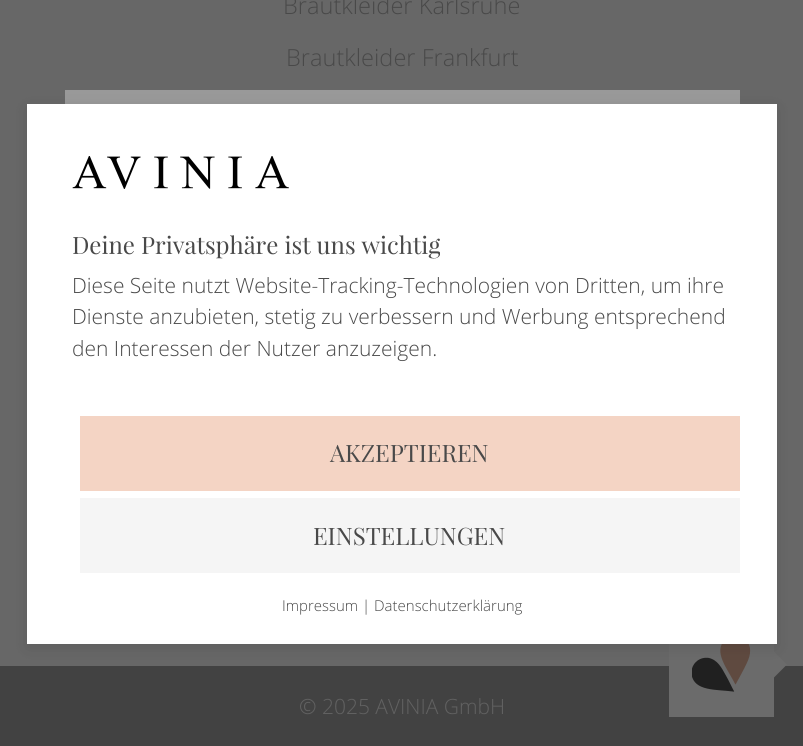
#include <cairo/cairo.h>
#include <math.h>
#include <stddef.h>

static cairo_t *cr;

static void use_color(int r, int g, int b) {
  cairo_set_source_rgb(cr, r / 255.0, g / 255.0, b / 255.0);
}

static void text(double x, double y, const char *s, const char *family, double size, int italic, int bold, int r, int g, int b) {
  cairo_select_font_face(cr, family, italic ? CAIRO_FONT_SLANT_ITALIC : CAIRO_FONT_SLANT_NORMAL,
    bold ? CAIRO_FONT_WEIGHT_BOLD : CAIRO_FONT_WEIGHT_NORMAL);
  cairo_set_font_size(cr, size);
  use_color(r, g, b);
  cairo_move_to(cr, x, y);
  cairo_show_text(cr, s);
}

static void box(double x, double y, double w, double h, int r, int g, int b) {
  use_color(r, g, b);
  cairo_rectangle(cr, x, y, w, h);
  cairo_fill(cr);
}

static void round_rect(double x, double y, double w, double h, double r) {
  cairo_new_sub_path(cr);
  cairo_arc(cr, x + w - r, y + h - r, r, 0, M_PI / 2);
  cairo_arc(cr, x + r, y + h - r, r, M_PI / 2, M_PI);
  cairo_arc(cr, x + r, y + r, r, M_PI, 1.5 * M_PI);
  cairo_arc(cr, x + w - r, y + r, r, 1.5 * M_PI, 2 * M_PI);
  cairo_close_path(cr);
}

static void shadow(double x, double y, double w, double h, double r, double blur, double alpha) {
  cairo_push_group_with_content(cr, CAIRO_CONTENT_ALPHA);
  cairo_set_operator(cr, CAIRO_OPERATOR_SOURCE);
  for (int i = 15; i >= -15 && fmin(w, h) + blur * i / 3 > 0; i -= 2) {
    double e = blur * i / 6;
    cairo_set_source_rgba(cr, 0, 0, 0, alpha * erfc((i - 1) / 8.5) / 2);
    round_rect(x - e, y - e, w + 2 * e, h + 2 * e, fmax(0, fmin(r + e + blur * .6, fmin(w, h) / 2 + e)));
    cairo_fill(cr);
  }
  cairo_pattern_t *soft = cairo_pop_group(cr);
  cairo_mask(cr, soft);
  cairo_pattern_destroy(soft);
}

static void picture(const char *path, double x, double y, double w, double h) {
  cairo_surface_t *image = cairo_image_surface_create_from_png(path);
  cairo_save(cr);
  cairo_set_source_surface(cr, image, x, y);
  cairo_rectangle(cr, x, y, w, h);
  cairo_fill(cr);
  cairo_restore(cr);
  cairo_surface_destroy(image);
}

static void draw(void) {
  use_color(103, 103, 103);
  cairo_paint(cr);
  box(0, 666, 803, 80, 66, 66, 66);
  box(65, 90, 675, 14, 153, 153, 153);
  box(669, 644, 105, 73, 107, 107, 107);
  picture("img_01.png", 692, 644, 59, 48);
  cairo_new_path(cr);
  cairo_move_to(cr, 774, 651.5);
  cairo_line_to(cr, 787, 664.5);
  cairo_line_to(cr, 774, 677.5);
  cairo_line_to(cr, 761, 664.5);
  cairo_close_path(cr);
  cairo_fill(cr);
  use_color(0, 0, 0);
  shadow(27, 108, 750, 540, 0, 7.5, 0.1);
  box(27, 104, 750, 540, 255, 255, 255);
  picture("img_02.png", 72, 156, 217, 33);
  box(80, 416, 660, 75, 244, 212, 196);
  box(80, 498, 660, 75, 245, 245, 245);
  text(283, 14, "Brautkleider Karlsruhe", "Open Sans Light", 23.6, 0, 0, 73, 73, 73);
  text(286, 66, "Brautkleider Frankfurt", "Open Sans Light", 23.6, 0, 0, 73, 73, 73);
  text(299, 714, "© 2025 AVINIA GmbH", "Open Sans Light", 21, 0, 0, 97, 97, 97);
  text(72, 254, "Deine Privatsphäre ist uns wichtig", "Playfair Display", 24, 0, 0, 73, 73, 73);
  text(72, 293, "Diese Seite nutzt Website-Tracking-Technologien von Dritten, um ihre", "Open Sans Light", 21, 0, 0, 73, 73, 73);
  text(72, 324, "Dienste anzubieten, stetig zu verbessern und Werbung entsprechend", "Open Sans Light", 21, 0, 0, 73, 73, 73);
  text(72, 356, "den Interessen der Nutzer anzuzeigen.", "Open Sans Light", 21, 0, 0, 73, 73, 73);
  text(330, 462, "AKZEPTIEREN", "Playfair Display", 24, 0, 0, 73, 73, 73);
  text(313, 545, "EINSTELLUNGEN", "Playfair Display", 24, 0, 0, 73, 73, 73);
  text(282, 611, "Impressum | Datenschutzerklärung", "Open Sans Light", 15, 0, 0, 73, 73, 73);
}

int main(void) {
  cairo_surface_t *surface = cairo_image_surface_create(CAIRO_FORMAT_RGB24, 803, 746);
  cr = cairo_create(surface);
  cairo_font_options_t *options = cairo_font_options_create();
  cairo_font_options_set_hint_metrics(options, CAIRO_HINT_METRICS_OFF);
  cairo_font_options_set_hint_style(options, CAIRO_HINT_STYLE_NONE);
  cairo_set_font_options(cr, options);
  cairo_set_miter_limit(cr, 4);
  draw();
  cairo_surface_write_to_png(surface, "out.png");
  cairo_font_options_destroy(options);
  cairo_destroy(cr);
  cairo_surface_destroy(surface);
  return 0;
}
